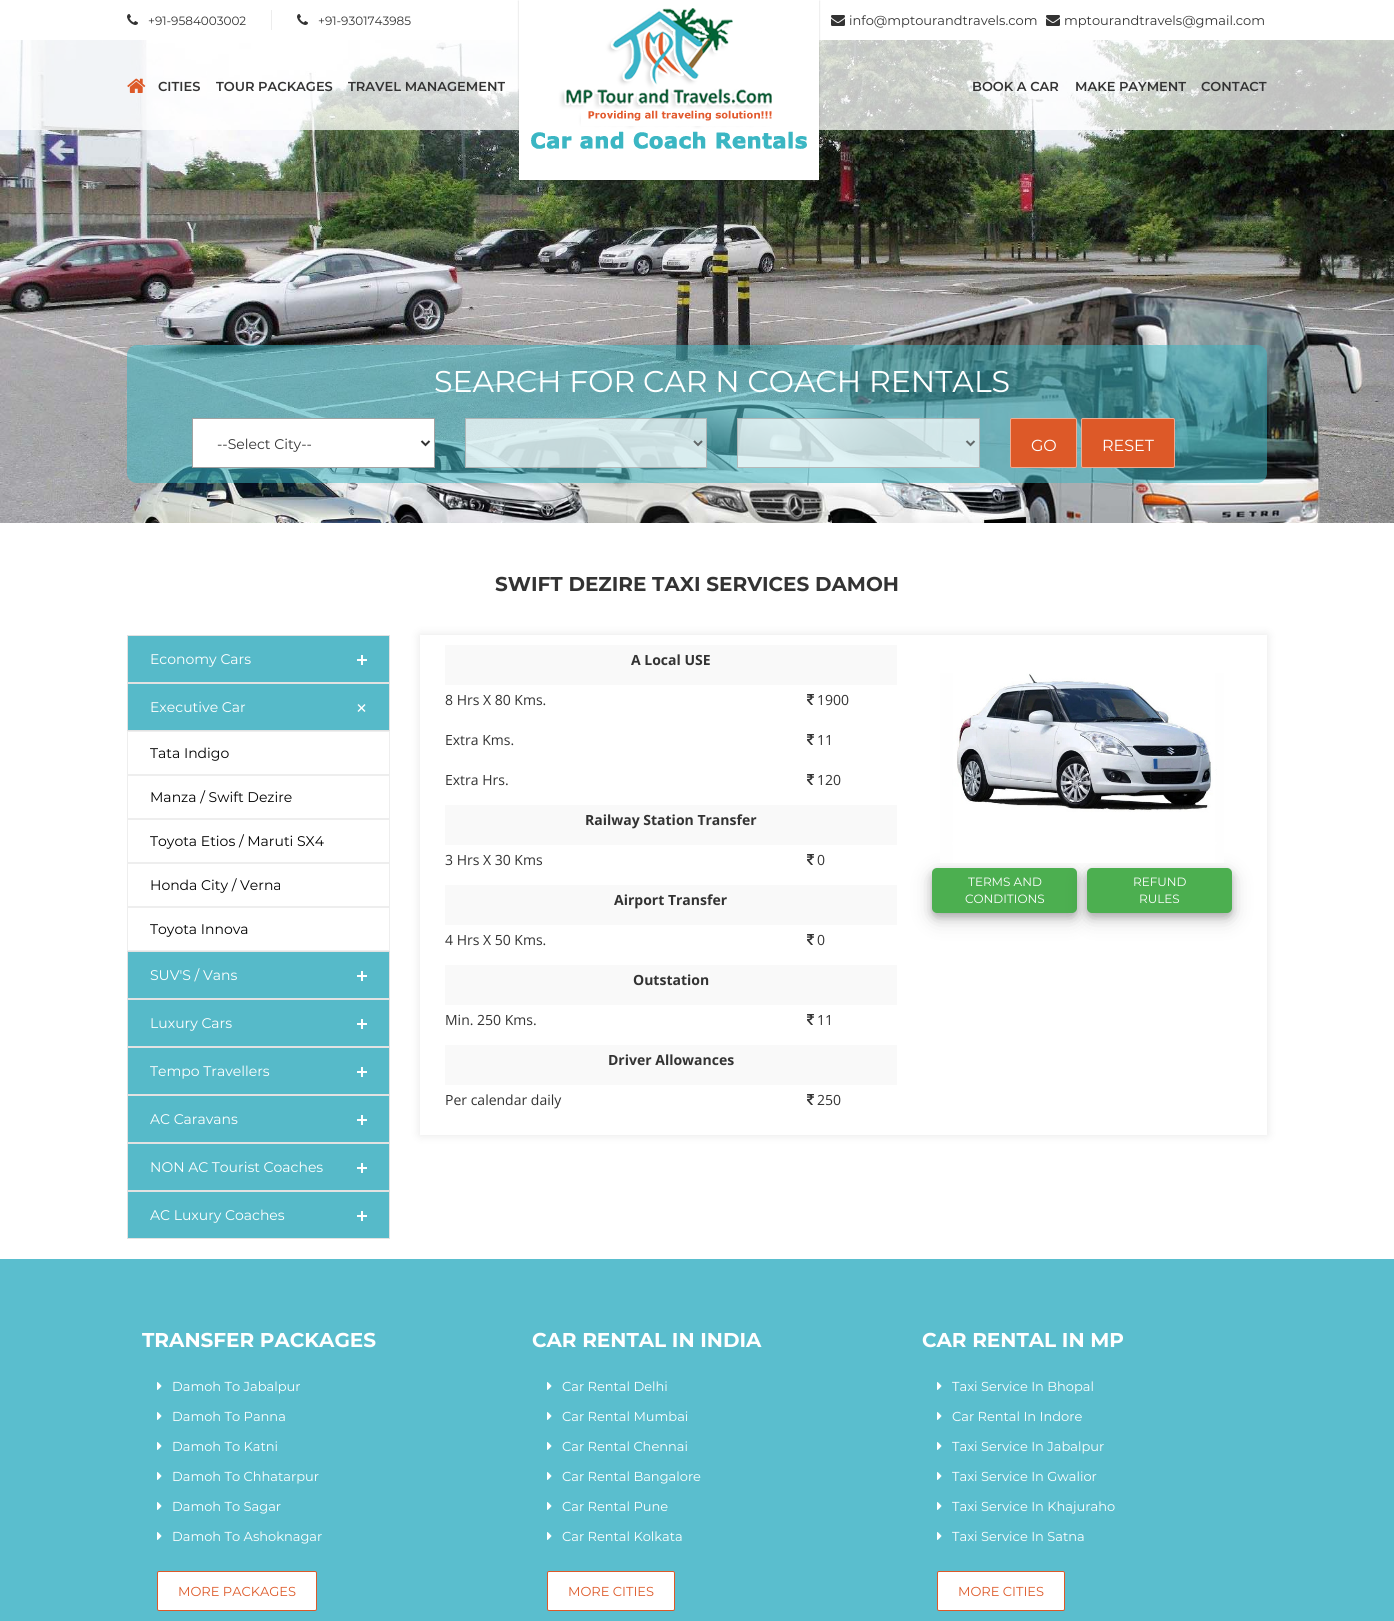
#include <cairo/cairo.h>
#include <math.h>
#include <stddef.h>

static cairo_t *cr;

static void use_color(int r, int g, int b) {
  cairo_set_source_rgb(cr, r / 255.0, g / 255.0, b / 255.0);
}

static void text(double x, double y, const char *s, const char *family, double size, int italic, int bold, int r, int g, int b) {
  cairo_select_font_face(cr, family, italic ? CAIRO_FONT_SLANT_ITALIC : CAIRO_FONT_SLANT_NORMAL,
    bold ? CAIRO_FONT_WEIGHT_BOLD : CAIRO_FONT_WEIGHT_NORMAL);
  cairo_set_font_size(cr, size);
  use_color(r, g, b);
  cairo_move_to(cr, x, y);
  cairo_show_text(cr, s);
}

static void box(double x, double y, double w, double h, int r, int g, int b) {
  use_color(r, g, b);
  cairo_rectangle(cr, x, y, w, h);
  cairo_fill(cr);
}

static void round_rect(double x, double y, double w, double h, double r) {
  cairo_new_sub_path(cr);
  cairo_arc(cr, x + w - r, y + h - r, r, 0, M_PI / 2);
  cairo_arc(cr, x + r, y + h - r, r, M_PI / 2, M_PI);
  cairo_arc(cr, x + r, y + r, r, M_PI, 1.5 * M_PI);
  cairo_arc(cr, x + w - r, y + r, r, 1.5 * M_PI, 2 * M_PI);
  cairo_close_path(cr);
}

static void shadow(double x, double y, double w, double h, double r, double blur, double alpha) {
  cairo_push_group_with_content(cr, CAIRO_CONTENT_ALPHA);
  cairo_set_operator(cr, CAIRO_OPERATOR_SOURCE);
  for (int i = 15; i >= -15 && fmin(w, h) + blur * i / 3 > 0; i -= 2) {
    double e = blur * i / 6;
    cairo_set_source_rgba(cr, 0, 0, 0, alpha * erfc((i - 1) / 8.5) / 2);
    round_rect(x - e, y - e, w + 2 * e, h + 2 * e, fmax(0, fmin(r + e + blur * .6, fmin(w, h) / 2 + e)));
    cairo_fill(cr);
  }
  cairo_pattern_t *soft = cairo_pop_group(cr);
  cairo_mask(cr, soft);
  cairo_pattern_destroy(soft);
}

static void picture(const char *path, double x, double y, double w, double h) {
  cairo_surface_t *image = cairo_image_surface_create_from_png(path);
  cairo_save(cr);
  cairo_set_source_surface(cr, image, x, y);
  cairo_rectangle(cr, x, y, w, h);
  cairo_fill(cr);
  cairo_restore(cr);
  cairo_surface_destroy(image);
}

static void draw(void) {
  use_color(255, 255, 255);
  cairo_paint(cr);
  picture("img_05.png", 0, 40, 1394, 483);
  cairo_set_source_rgba(cr, 1, 1, 1, 0.75);
  cairo_rectangle(cr, 0, 40, 1394, 90);
  cairo_fill(cr);
  use_color(0, 0, 0);
  shadow(519, 1, 300, 180, 0, 1, 0.2);
  box(519, 0, 300, 180, 255, 255, 255);
  picture("img_01.png", 531, 8, 276, 141);
  box(271, 10, 1, 20, 237, 237, 237);
  picture("img_02.png", 127, 14, 11, 11);
  picture("img_02.png", 297, 14, 11, 11);
  picture("img_03.png", 831, 15, 14, 11);
  picture("img_03.png", 1046, 15, 14, 11);
  picture("img_04.png", 127, 78, 19, 15);
  cairo_set_source_rgba(cr, 0.231, 0.714, 0.765, 0.53);
  round_rect(127, 345, 1140, 138, 10);
  cairo_fill(cr);
  use_color(255, 255, 255);
  cairo_rectangle(cr, 192.5, 418.5, 242, 49);
  cairo_fill_preserve(cr);
  use_color(162, 162, 162);
  cairo_set_line_width(cr, 1);
  cairo_stroke(cr);
  cairo_new_path(cr);
  cairo_move_to(cr, 421.5, 441);
  cairo_line_to(cr, 425.5, 445);
  cairo_line_to(cr, 429.5, 441);
  use_color(51, 51, 51);
  cairo_set_line_width(cr, 2);
  cairo_stroke(cr);
  cairo_set_source_rgba(cr, 1, 1, 1, 0.7);
  cairo_rectangle(cr, 465, 418, 242, 50);
  cairo_fill(cr);
  cairo_rectangle(cr, 465.5, 418.5, 241, 49);
  cairo_set_source_rgba(cr, 0.635, 0.635, 0.635, 0.7);
  cairo_set_line_width(cr, 1);
  cairo_stroke(cr);
  cairo_new_path(cr);
  cairo_move_to(cr, 694, 441);
  cairo_line_to(cr, 698, 445);
  cairo_line_to(cr, 702, 441);
  cairo_set_source_rgba(cr, 0.2, 0.2, 0.2, 0.7);
  cairo_set_line_width(cr, 2);
  cairo_stroke(cr);
  cairo_set_source_rgba(cr, 1, 1, 1, 0.7);
  cairo_rectangle(cr, 737, 418, 243, 50);
  cairo_fill(cr);
  cairo_rectangle(cr, 737.5, 418.5, 242, 49);
  cairo_set_source_rgba(cr, 0.635, 0.635, 0.635, 0.7);
  cairo_set_line_width(cr, 1);
  cairo_stroke(cr);
  cairo_new_path(cr);
  cairo_move_to(cr, 966.5, 441);
  cairo_line_to(cr, 970.5, 445);
  cairo_line_to(cr, 974.5, 441);
  cairo_set_source_rgba(cr, 0.2, 0.2, 0.2, 0.7);
  cairo_set_line_width(cr, 2);
  cairo_stroke(cr);
  use_color(221, 89, 40);
  round_rect(1010, 418, 67, 50, 2);
  cairo_fill(cr);
  round_rect(1010.5, 418.5, 66, 49, 1.5);
  cairo_set_source_rgba(cr, 1, 1, 1, 0.5);
  cairo_set_line_width(cr, 1);
  cairo_stroke(cr);
  use_color(221, 89, 40);
  round_rect(1081, 418, 94, 50, 2);
  cairo_fill(cr);
  round_rect(1081.5, 418.5, 93, 49, 1.5);
  cairo_set_source_rgba(cr, 1, 1, 1, 0.5);
  cairo_stroke(cr);
  use_color(86, 186, 201);
  cairo_rectangle(cr, 127.5, 635.5, 262, 47);
  cairo_fill_preserve(cr);
  use_color(226, 226, 226);
  cairo_stroke(cr);
  box(357, 659, 10, 2, 255, 255, 255);
  box(361, 655, 2, 10, 255, 255, 255);
  use_color(86, 186, 201);
  cairo_rectangle(cr, 127.5, 683.5, 262, 47);
  cairo_fill_preserve(cr);
  use_color(226, 226, 226);
  cairo_stroke(cr);
  use_color(255, 255, 255);
  cairo_new_path(cr);
  cairo_move_to(cr, 358.5, 704);
  cairo_line_to(cr, 365.5, 711);
  cairo_line_to(cr, 364.5, 712);
  cairo_line_to(cr, 357.5, 705);
  cairo_close_path(cr);
  cairo_fill(cr);
  cairo_new_path(cr);
  cairo_move_to(cr, 364.5, 704);
  cairo_line_to(cr, 365.5, 705);
  cairo_line_to(cr, 358.5, 712);
  cairo_line_to(cr, 357.5, 711);
  cairo_close_path(cr);
  cairo_fill(cr);
  cairo_rectangle(cr, 127.5, 731.5, 262, 43);
  use_color(238, 238, 238);
  cairo_stroke(cr);
  cairo_rectangle(cr, 127.5, 775.5, 262, 43);
  cairo_stroke(cr);
  cairo_rectangle(cr, 127.5, 819.5, 262, 43);
  cairo_stroke(cr);
  cairo_rectangle(cr, 127.5, 863.5, 262, 43);
  cairo_stroke(cr);
  cairo_rectangle(cr, 127.5, 907.5, 262, 43);
  cairo_stroke(cr);
  use_color(86, 186, 201);
  cairo_rectangle(cr, 127.5, 951.5, 262, 47);
  cairo_fill_preserve(cr);
  use_color(226, 226, 226);
  cairo_stroke(cr);
  box(357, 975, 10, 2, 255, 255, 255);
  box(361, 971, 2, 10, 255, 255, 255);
  use_color(86, 186, 201);
  cairo_rectangle(cr, 127.5, 999.5, 262, 47);
  cairo_fill_preserve(cr);
  use_color(226, 226, 226);
  cairo_stroke(cr);
  box(357, 1023, 10, 2, 255, 255, 255);
  box(361, 1019, 2, 10, 255, 255, 255);
  use_color(86, 186, 201);
  cairo_rectangle(cr, 127.5, 1047.5, 262, 47);
  cairo_fill_preserve(cr);
  use_color(226, 226, 226);
  cairo_stroke(cr);
  box(357, 1071, 10, 2, 255, 255, 255);
  box(361, 1067, 2, 10, 255, 255, 255);
  use_color(86, 186, 201);
  cairo_rectangle(cr, 127.5, 1095.5, 262, 47);
  cairo_fill_preserve(cr);
  use_color(226, 226, 226);
  cairo_stroke(cr);
  box(357, 1119, 10, 2, 255, 255, 255);
  box(361, 1115, 2, 10, 255, 255, 255);
  use_color(86, 186, 201);
  cairo_rectangle(cr, 127.5, 1143.5, 262, 47);
  cairo_fill_preserve(cr);
  use_color(226, 226, 226);
  cairo_stroke(cr);
  box(357, 1167, 10, 2, 255, 255, 255);
  box(361, 1163, 2, 10, 255, 255, 255);
  use_color(86, 186, 201);
  cairo_rectangle(cr, 127.5, 1191.5, 262, 47);
  cairo_fill_preserve(cr);
  use_color(226, 226, 226);
  cairo_stroke(cr);
  box(357, 1215, 10, 2, 255, 255, 255);
  box(361, 1211, 2, 10, 255, 255, 255);
  cairo_save(cr);
  cairo_set_fill_rule(cr, CAIRO_FILL_RULE_EVEN_ODD);
  cairo_new_path(cr);
  cairo_move_to(cr, 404, 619);
  cairo_line_to(cr, 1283, 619);
  cairo_line_to(cr, 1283, 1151);
  cairo_line_to(cr, 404, 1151);
  cairo_close_path(cr);
  cairo_move_to(cr, 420, 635);
  cairo_line_to(cr, 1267, 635);
  cairo_line_to(cr, 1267, 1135);
  cairo_line_to(cr, 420, 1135);
  cairo_close_path(cr);
  cairo_clip(cr);
  use_color(0, 0, 0);
  shadow(420, 635, 847, 500, 0, 5, 0.1);
  cairo_restore(cr);
  box(445, 645, 452, 40, 249, 249, 249);
  picture("img_06.png", 807, 694, 7, 11);
  picture("img_06.png", 807, 734, 7, 11);
  picture("img_06.png", 807, 774, 7, 11);
  box(445, 805, 452, 40, 249, 249, 249);
  picture("img_06.png", 807, 854, 7, 11);
  box(445, 885, 452, 40, 249, 249, 249);
  picture("img_06.png", 807, 934, 7, 11);
  box(445, 965, 452, 40, 249, 249, 249);
  picture("img_06.png", 807, 1014, 7, 11);
  box(445, 1045, 452, 40, 249, 249, 249);
  picture("img_06.png", 807, 1094, 7, 11);
  use_color(0, 0, 0);
  shadow(932, 874, 145, 45, 5, 10, 0.19);
  shadow(932, 872, 145, 45, 5, 4, 0.2);
  use_color(76, 175, 80);
  round_rect(932, 868, 145, 45, 5);
  cairo_fill(cr);
  use_color(0, 0, 0);
  shadow(1087, 874, 145, 45, 5, 10, 0.19);
  shadow(1087, 872, 145, 45, 5, 4, 0.2);
  picture("img_07.png", 940, 673, 284, 190);
  use_color(76, 175, 80);
  round_rect(1087, 868, 145, 45, 5);
  cairo_fill(cr);
  box(0, 1259, 1394, 362, 90, 190, 206);
  picture("img_08.png", 157, 1382, 5, 8);
  picture("img_08.png", 157, 1412, 5, 8);
  picture("img_08.png", 157, 1442, 5, 8);
  picture("img_08.png", 157, 1472, 5, 8);
  picture("img_08.png", 157, 1502, 5, 8);
  picture("img_08.png", 157, 1532, 5, 8);
  use_color(255, 255, 255);
  round_rect(157.5, 1571.5, 159, 39, 1.5);
  cairo_fill_preserve(cr);
  use_color(221, 89, 40);
  cairo_stroke(cr);
  picture("img_08.png", 547, 1382, 5, 8);
  picture("img_08.png", 547, 1412, 5, 8);
  picture("img_08.png", 547, 1442, 5, 8);
  picture("img_08.png", 547, 1472, 5, 8);
  picture("img_08.png", 547, 1502, 5, 8);
  picture("img_08.png", 547, 1532, 5, 8);
  use_color(255, 255, 255);
  round_rect(547.5, 1571.5, 127, 39, 1.5);
  cairo_fill_preserve(cr);
  use_color(221, 89, 40);
  cairo_stroke(cr);
  picture("img_08.png", 937, 1382, 5, 8);
  picture("img_08.png", 937, 1412, 5, 8);
  picture("img_08.png", 937, 1442, 5, 8);
  picture("img_08.png", 937, 1472, 5, 8);
  picture("img_08.png", 937, 1502, 5, 8);
  picture("img_08.png", 937, 1532, 5, 8);
  use_color(255, 255, 255);
  round_rect(937.5, 1571.5, 127, 39, 1.5);
  cairo_fill_preserve(cr);
  use_color(221, 89, 40);
  cairo_stroke(cr);
  text(148, 25, "+91-9584003002", "Montserrat", 12, 0, 0, 51, 51, 51);
  text(318, 25, "+91-9301743985", "Montserrat", 12, 0, 0, 51, 51, 51);
  text(849, 25, "info@mptourandtravels.com", "Montserrat", 13, 0, 0, 51, 51, 51);
  text(1064, 25, "mptourandtravels@gmail.com", "Montserrat", 13, 0, 0, 51, 51, 51);
  text(158, 91, "CITIES", "Montserrat SemiBold", 13, 0, 0, 51, 51, 51);
  text(216, 91, "TOUR PACKAGES", "Montserrat SemiBold", 13, 0, 0, 51, 51, 51);
  text(348, 91, "TRAVEL MANAGEMENT", "Montserrat SemiBold", 13, 0, 0, 51, 51, 51);
  text(972, 91, "BOOK A CAR", "Montserrat SemiBold", 13, 0, 0, 51, 51, 51);
  text(1075, 91, "MAKE PAYMENT", "Montserrat SemiBold", 13, 0, 0, 51, 51, 51);
  text(1201, 91, "CONTACT", "Montserrat SemiBold", 13, 0, 0, 51, 51, 51);
  text(434, 392, "SEARCH FOR CAR N COACH RENTALS", "Montserrat", 30, 0, 0, 255, 255, 255);
  text(217, 449, "--Select City--", "Montserrat", 14, 0, 0, 51, 51, 51);
  text(1031, 451, "GO", "Montserrat", 16, 0, 0, 255, 255, 255);
  text(1102, 451, "RESET", "Montserrat", 16, 0, 0, 255, 255, 255);
  text(495, 591, "SWIFT DEZIRE TAXI SERVICES DAMOH", "Montserrat", 20, 0, 1, 51, 51, 51);
  text(150, 664, "Economy Cars", "Montserrat", 14, 0, 0, 255, 255, 255);
  text(150, 712, "Executive Car", "Montserrat", 14, 0, 0, 255, 255, 255);
  text(150, 758, "Tata Indigo", "Montserrat", 14, 0, 0, 0, 0, 0);
  text(150, 802, "Manza / Swift Dezire", "Montserrat", 14, 0, 0, 0, 0, 0);
  text(150, 846, "Toyota Etios / Maruti SX4", "Montserrat", 14, 0, 0, 0, 0, 0);
  text(150, 890, "Honda City / Verna", "Montserrat", 14, 0, 0, 0, 0, 0);
  text(150, 934, "Toyota Innova", "Montserrat", 14, 0, 0, 0, 0, 0);
  text(150, 980, "SUV'S / Vans", "Montserrat", 14, 0, 0, 255, 255, 255);
  text(150, 1028, "Luxury Cars", "Montserrat", 14, 0, 0, 255, 255, 255);
  text(150, 1076, "Tempo Travellers", "Montserrat", 14, 0, 0, 255, 255, 255);
  text(150, 1124, "AC Caravans", "Montserrat", 14, 0, 0, 255, 255, 255);
  text(150, 1172, "NON AC Tourist Coaches", "Montserrat", 14, 0, 0, 255, 255, 255);
  text(150, 1220, "AC Luxury Coaches", "Montserrat", 14, 0, 0, 255, 255, 255);
  text(631, 665, "A Local USE", "Open Sans", 14, 0, 1, 51, 51, 51);
  text(445, 705, "8 Hrs X 80 Kms.", "Open Sans", 14, 0, 0, 51, 51, 51);
  text(817, 705, "1900", "Open Sans", 14, 0, 0, 51, 51, 51);
  text(445, 745, "Extra Kms.", "Open Sans", 14, 0, 0, 51, 51, 51);
  text(817, 745, "11", "Open Sans", 14, 0, 0, 51, 51, 51);
  text(445, 785, "Extra Hrs.", "Open Sans", 14, 0, 0, 51, 51, 51);
  text(817, 785, "120", "Open Sans", 14, 0, 0, 51, 51, 51);
  text(585, 825, "Railway Station Transfer", "Open Sans", 14, 0, 1, 51, 51, 51);
  text(445, 865, "3 Hrs X 30 Kms", "Open Sans", 14, 0, 0, 51, 51, 51);
  text(817, 865, "0", "Open Sans", 14, 0, 0, 51, 51, 51);
  text(614, 905, "Airport Transfer", "Open Sans", 14, 0, 1, 51, 51, 51);
  text(445, 945, "4 Hrs X 50 Kms.", "Open Sans", 14, 0, 0, 51, 51, 51);
  text(817, 945, "0", "Open Sans", 14, 0, 0, 51, 51, 51);
  text(633, 985, "Outstation", "Open Sans", 14, 0, 1, 51, 51, 51);
  text(445, 1025, "Min. 250 Kms.", "Open Sans", 14, 0, 0, 51, 51, 51);
  text(817, 1025, "11", "Open Sans", 14, 0, 0, 51, 51, 51);
  text(608, 1065, "Driver Allowances", "Open Sans", 14, 0, 1, 51, 51, 51);
  text(445, 1105, "Per calendar daily", "Open Sans", 14, 0, 0, 51, 51, 51);
  text(817, 1105, "250", "Open Sans", 14, 0, 0, 51, 51, 51);
  text(968, 886, "TERMS AND", "Montserrat", 12, 0, 0, 255, 255, 255);
  text(965, 903, "CONDITIONS", "Montserrat", 12, 0, 0, 255, 255, 255);
  text(1133, 886, "REFUND", "Montserrat", 12, 0, 0, 255, 255, 255);
  text(1139, 903, "RULES", "Montserrat", 12, 0, 0, 255, 255, 255);
  text(142, 1347, "TRANSFER PACKAGES", "Montserrat", 20, 0, 1, 255, 255, 255);
  text(172, 1391, "Damoh To Jabalpur", "Montserrat", 13, 0, 0, 255, 255, 255);
  text(172, 1421, "Damoh To Panna", "Montserrat", 13, 0, 0, 255, 255, 255);
  text(172, 1451, "Damoh To Katni", "Montserrat", 13, 0, 0, 255, 255, 255);
  text(172, 1481, "Damoh To Chhatarpur", "Montserrat", 13, 0, 0, 255, 255, 255);
  text(172, 1511, "Damoh To Sagar", "Montserrat", 13, 0, 0, 255, 255, 255);
  text(172, 1541, "Damoh To Ashoknagar", "Montserrat", 13, 0, 0, 255, 255, 255);
  text(178, 1596, "MORE PACKAGES", "Montserrat", 13, 0, 0, 221, 89, 40);
  text(532, 1347, "CAR RENTAL IN INDIA", "Montserrat", 20, 0, 1, 255, 255, 255);
  text(562, 1391, "Car Rental Delhi", "Montserrat", 13, 0, 0, 255, 255, 255);
  text(562, 1421, "Car Rental Mumbai", "Montserrat", 13, 0, 0, 255, 255, 255);
  text(562, 1451, "Car Rental Chennai", "Montserrat", 13, 0, 0, 255, 255, 255);
  text(562, 1481, "Car Rental Bangalore", "Montserrat", 13, 0, 0, 255, 255, 255);
  text(562, 1511, "Car Rental Pune", "Montserrat", 13, 0, 0, 255, 255, 255);
  text(562, 1541, "Car Rental Kolkata", "Montserrat", 13, 0, 0, 255, 255, 255);
  text(568, 1596, "MORE CITIES", "Montserrat", 13, 0, 0, 221, 89, 40);
  text(922, 1347, "CAR RENTAL IN MP", "Montserrat", 20, 0, 1, 255, 255, 255);
  text(952, 1391, "Taxi Service In Bhopal", "Montserrat", 13, 0, 0, 255, 255, 255);
  text(952, 1421, "Car Rental In Indore", "Montserrat", 13, 0, 0, 255, 255, 255);
  text(952, 1451, "Taxi Service In Jabalpur", "Montserrat", 13, 0, 0, 255, 255, 255);
  text(952, 1481, "Taxi Service In Gwalior", "Montserrat", 13, 0, 0, 255, 255, 255);
  text(952, 1511, "Taxi Service In Khajuraho", "Montserrat", 13, 0, 0, 255, 255, 255);
  text(952, 1541, "Taxi Service In Satna", "Montserrat", 13, 0, 0, 255, 255, 255);
  text(958, 1596, "MORE CITIES", "Montserrat", 13, 0, 0, 221, 89, 40);
}

int main(void) {
  cairo_surface_t *surface = cairo_image_surface_create(CAIRO_FORMAT_RGB24, 1394, 1621);
  cr = cairo_create(surface);
  cairo_font_options_t *options = cairo_font_options_create();
  cairo_font_options_set_hint_metrics(options, CAIRO_HINT_METRICS_OFF);
  cairo_font_options_set_hint_style(options, CAIRO_HINT_STYLE_NONE);
  cairo_set_font_options(cr, options);
  cairo_set_miter_limit(cr, 4);
  draw();
  cairo_surface_write_to_png(surface, "out.png");
  cairo_font_options_destroy(options);
  cairo_destroy(cr);
  cairo_surface_destroy(surface);
  return 0;
}
